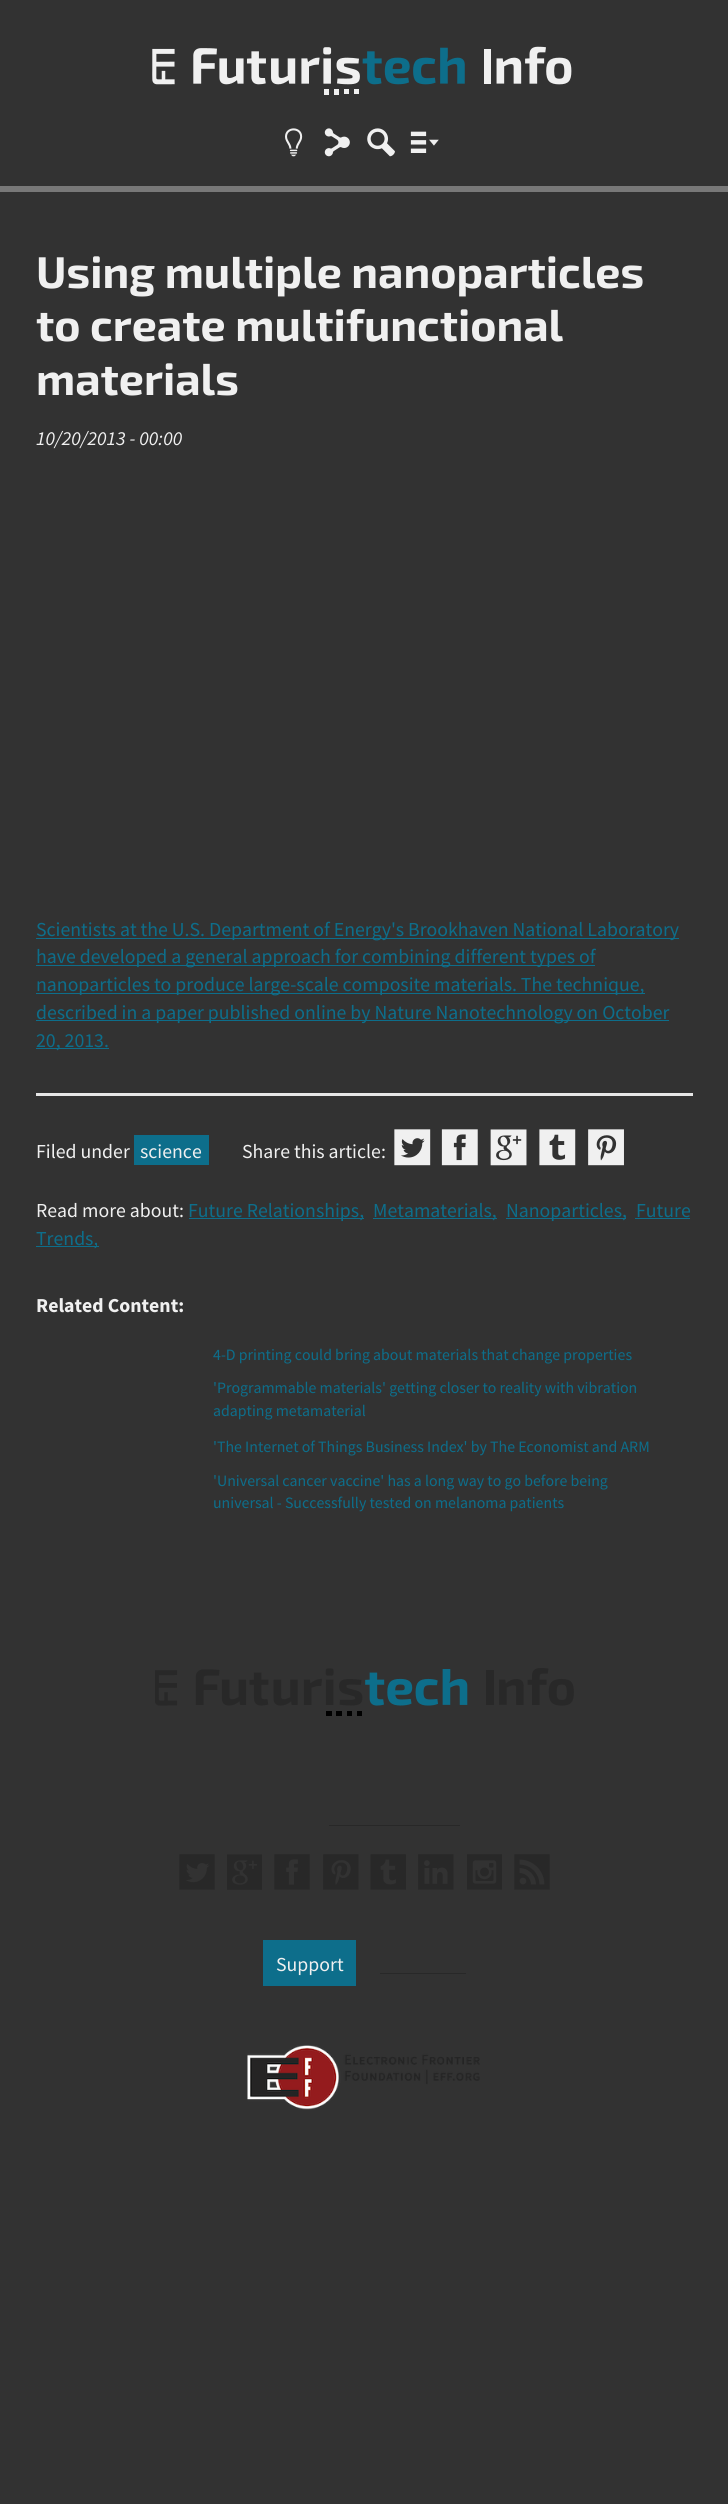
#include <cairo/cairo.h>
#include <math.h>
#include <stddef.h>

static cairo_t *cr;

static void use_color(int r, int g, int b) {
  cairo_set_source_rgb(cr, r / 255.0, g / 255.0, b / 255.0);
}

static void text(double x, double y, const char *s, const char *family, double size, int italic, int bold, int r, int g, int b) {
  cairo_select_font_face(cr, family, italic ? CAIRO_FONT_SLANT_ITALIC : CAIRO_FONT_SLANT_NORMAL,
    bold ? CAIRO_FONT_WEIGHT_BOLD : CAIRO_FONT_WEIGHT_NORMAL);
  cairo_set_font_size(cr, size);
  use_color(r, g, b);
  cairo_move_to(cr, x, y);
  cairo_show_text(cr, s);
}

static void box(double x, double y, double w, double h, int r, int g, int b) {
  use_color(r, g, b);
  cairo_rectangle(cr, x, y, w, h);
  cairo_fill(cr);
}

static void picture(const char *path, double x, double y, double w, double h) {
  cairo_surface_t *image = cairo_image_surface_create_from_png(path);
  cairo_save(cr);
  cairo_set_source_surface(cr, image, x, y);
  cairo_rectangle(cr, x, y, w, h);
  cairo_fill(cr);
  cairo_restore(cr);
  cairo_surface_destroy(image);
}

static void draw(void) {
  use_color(50, 50, 50);
  cairo_paint(cr);
  picture("img_01.png", 152, 46, 420, 49);
  picture("img_02.png", 285, 128, 18, 29);
  picture("img_03.png", 324, 128, 26, 29);
  picture("img_04.png", 367, 128, 28, 29);
  picture("img_05.png", 410, 131, 29, 22);
  box(0, 186, 728, 6, 120, 120, 120);
  box(36, 938, 643, 1, 13, 110, 139);
  box(36, 965, 559, 1, 13, 110, 139);
  box(36, 993, 609, 1, 13, 110, 139);
  box(36, 1020, 633, 1, 13, 110, 139);
  box(36, 1048, 73, 1, 13, 110, 139);
  box(36, 1093, 657, 3, 230, 230, 230);
  box(134, 1135, 75, 30, 13, 110, 139);
  picture("img_06.png", 394, 1129, 37, 37);
  picture("img_07.png", 441, 1129, 37, 37);
  picture("img_08.png", 490, 1129, 37, 37);
  picture("img_09.png", 539, 1129, 37, 37);
  picture("img_10.png", 588, 1129, 36, 37);
  box(189, 1218, 175, 1, 13, 110, 139);
  box(373, 1218, 124, 1, 13, 110, 139);
  box(506, 1218, 115, 1, 13, 110, 139);
  box(621, 1218, 5, 1, 13, 110, 139);
  box(635, 1218, 55, 1, 13, 110, 139);
  box(36, 1246, 63, 1, 13, 110, 139);
  picture("img_11.png", 155, 1668, 419, 48);
  box(329, 1825, 131, 1, 40, 40, 40);
  picture("img_12.png", 179, 1854, 36, 36);
  picture("img_13.png", 227, 1854, 35, 36);
  picture("img_14.png", 274, 1854, 36, 36);
  picture("img_15.png", 323, 1854, 36, 36);
  picture("img_16.png", 370, 1854, 36, 36);
  picture("img_17.png", 418, 1854, 36, 36);
  picture("img_18.png", 467, 1854, 35, 36);
  picture("img_19.png", 514, 1854, 36, 36);
  box(263, 1940, 93, 46, 13, 110, 139);
  box(380, 1973, 86, 1, 40, 40, 40);
  picture("img_20.png", 247, 2045, 233, 65);
  text(36, 288, "Using multiple nanoparticles", "Exo 2", 44.5, 0, 1, 240, 240, 240);
  text(36, 341, "to create multifunctional", "Exo 2", 44.5, 0, 1, 240, 240, 240);
  text(36, 395, "materials", "Exo 2", 44.5, 0, 1, 240, 240, 240);
  text(36, 445, "10/20/2013 - 00:00", "Source Sans Pro", 19.8, 1, 0, 240, 240, 240);
  text(36, 936, "Scientists at the U.S. Department of Energy's Brookhaven National Laboratory", "Source Sans Pro", 19.8, 0, 0, 13, 110, 139);
  text(36, 963, "have developed a general approach for combining different types of", "Source Sans Pro", 19.8, 0, 0, 13, 110, 139);
  text(36, 991, "nanoparticles to produce large-scale composite materials. The technique,", "Source Sans Pro", 19.8, 0, 0, 13, 110, 139);
  text(36, 1019, "described in a paper published online by Nature Nanotechnology on October", "Source Sans Pro", 19.8, 0, 0, 13, 110, 139);
  text(36, 1047, "20, 2013.", "Source Sans Pro", 19.8, 0, 0, 13, 110, 139);
  text(36, 1158, "Filed under", "Source Sans Pro", 19.8, 0, 0, 240, 240, 240);
  text(140, 1158, "science", "Source Sans Pro", 19.8, 0, 0, 240, 240, 240);
  text(242, 1158, "Share this article:", "Source Sans Pro", 19.8, 0, 0, 240, 240, 240);
  text(36, 1217, "Read more about:", "Source Sans Pro", 19.8, 0, 0, 240, 240, 240);
  text(188, 1217, "Future Relationships,", "Source Sans Pro", 19.8, 0, 0, 13, 110, 139);
  text(373, 1217, "Metamaterials,", "Source Sans Pro", 19.8, 0, 0, 13, 110, 139);
  text(506, 1217, "Nanoparticles", "Source Sans Pro", 19.8, 0, 0, 13, 110, 139);
  text(622, 1217, ",", "Source Sans Pro", 19.8, 0, 0, 13, 110, 139);
  text(636, 1217, "Future", "Source Sans Pro", 19.8, 0, 0, 13, 110, 139);
  text(36, 1245, "Trends,", "Source Sans Pro", 19.8, 0, 0, 13, 110, 139);
  text(36, 1312, "Related Content:", "Source Sans Pro", 19.8, 0, 1, 240, 240, 240);
  text(213, 1360, "4-D printing could bring about materials that change properties", "Source Sans Pro", 15.85, 0, 0, 13, 110, 139);
  text(213, 1393, "'Programmable materials' getting closer to reality with vibration", "Source Sans Pro", 15.85, 0, 0, 13, 110, 139);
  text(213, 1416, "adapting metamaterial", "Source Sans Pro", 15.85, 0, 0, 13, 110, 139);
  text(213, 1452, "'The Internet of Things Business Index' by The Economist and ARM", "Source Sans Pro", 15.85, 0, 0, 13, 110, 139);
  text(213, 1486, "'Universal cancer vaccine' has a long way to go before being", "Source Sans Pro", 15.85, 0, 0, 13, 110, 139);
  text(213, 1508, "universal - Successfully tested on melanoma patients", "Source Sans Pro", 15.85, 0, 0, 13, 110, 139);
  text(276, 1971, "Support", "Source Sans Pro", 19.8, 0, 0, 240, 240, 240);
}

int main(void) {
  cairo_surface_t *surface = cairo_image_surface_create(CAIRO_FORMAT_RGB24, 728, 2504);
  cr = cairo_create(surface);
  cairo_font_options_t *options = cairo_font_options_create();
  cairo_font_options_set_hint_metrics(options, CAIRO_HINT_METRICS_OFF);
  cairo_font_options_set_hint_style(options, CAIRO_HINT_STYLE_NONE);
  cairo_set_font_options(cr, options);
  cairo_set_miter_limit(cr, 4);
  draw();
  cairo_surface_write_to_png(surface, "out.png");
  cairo_font_options_destroy(options);
  cairo_destroy(cr);
  cairo_surface_destroy(surface);
  return 0;
}
